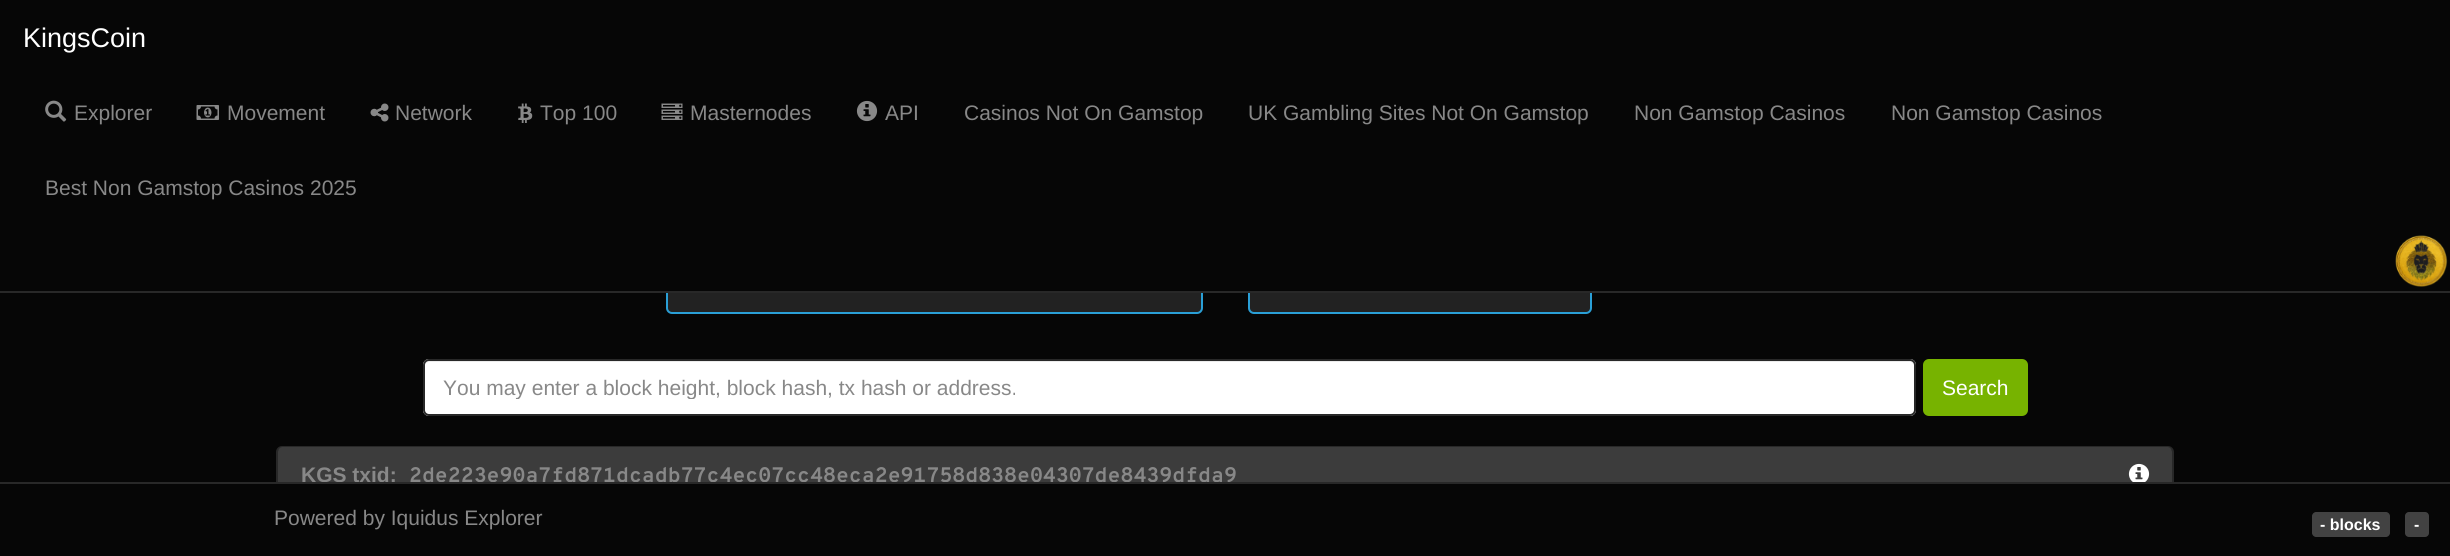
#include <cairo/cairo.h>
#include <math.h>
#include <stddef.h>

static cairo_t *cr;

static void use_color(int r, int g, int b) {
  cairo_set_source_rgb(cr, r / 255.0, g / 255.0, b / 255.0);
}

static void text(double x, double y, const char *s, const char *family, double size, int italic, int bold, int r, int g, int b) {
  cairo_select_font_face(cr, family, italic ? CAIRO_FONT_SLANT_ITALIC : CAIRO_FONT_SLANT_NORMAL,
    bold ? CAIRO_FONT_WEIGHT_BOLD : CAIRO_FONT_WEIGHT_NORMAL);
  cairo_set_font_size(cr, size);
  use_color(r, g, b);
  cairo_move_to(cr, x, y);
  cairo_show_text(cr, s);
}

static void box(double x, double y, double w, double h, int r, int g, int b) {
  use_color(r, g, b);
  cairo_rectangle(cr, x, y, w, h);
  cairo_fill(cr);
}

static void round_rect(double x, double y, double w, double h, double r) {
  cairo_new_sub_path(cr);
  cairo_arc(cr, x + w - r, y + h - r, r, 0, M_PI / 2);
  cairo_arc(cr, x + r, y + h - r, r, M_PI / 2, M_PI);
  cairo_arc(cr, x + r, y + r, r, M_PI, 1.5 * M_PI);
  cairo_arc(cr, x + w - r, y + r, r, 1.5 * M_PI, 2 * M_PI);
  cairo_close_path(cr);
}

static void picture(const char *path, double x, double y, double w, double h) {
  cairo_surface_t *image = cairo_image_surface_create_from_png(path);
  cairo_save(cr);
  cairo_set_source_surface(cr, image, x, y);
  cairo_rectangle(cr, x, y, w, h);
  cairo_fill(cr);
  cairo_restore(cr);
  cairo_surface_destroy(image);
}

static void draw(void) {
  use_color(6, 6, 6);
  cairo_paint(cr);
  use_color(34, 34, 34);
  round_rect(667, 121, 535, 192, 5);
  cairo_fill_preserve(cr);
  use_color(42, 159, 214);
  cairo_stroke(cr);
  use_color(34, 34, 34);
  round_rect(1249, 121, 342, 192, 5);
  cairo_fill_preserve(cr);
  use_color(42, 159, 214);
  cairo_stroke(cr);
  box(666, 120, 926, 171, 6, 6, 6);
  box(0, 291, 2450, 2, 40, 40, 40);
  picture("img_01.png", 45, 100, 22, 22);
  picture("img_02.png", 196, 105, 23, 15);
  picture("img_03.png", 370, 103, 19, 19);
  picture("img_04.png", 518, 103, 15, 20);
  picture("img_05.png", 661, 103, 22, 17);
  picture("img_06.png", 856, 100, 22, 22);
  picture("img_07.png", 2395, 235, 53, 52);
  use_color(255, 255, 255);
  round_rect(423, 359, 1493, 57, 6);
  cairo_fill(cr);
  use_color(236, 236, 236);
  cairo_new_path(cr);
  cairo_move_to(cr, 429, 362);
  cairo_line_to(cr, 1910, 362);
  cairo_curve_to(cr, 1912, 362, 1914, 364, 1914, 366);
  cairo_line_to(cr, 1914, 365);
  cairo_curve_to(cr, 1914, 362, 1912, 360, 1909, 360);
  cairo_line_to(cr, 430, 360);
  cairo_curve_to(cr, 428, 360, 426, 362, 425, 364);
  cairo_curve_to(cr, 426, 363, 428, 362, 429, 362);
  cairo_close_path(cr);
  cairo_fill(cr);
  round_rect(424, 360, 1491, 55, 5);
  use_color(40, 40, 40);
  cairo_stroke(cr);
  use_color(119, 179, 0);
  round_rect(1924, 360, 103, 55, 5);
  cairo_fill_preserve(cr);
  cairo_stroke(cr);
  round_rect(277, 447, 1896, 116, 5);
  use_color(40, 40, 40);
  cairo_stroke(cr);
  use_color(60, 60, 60);
  cairo_new_path(cr);
  cairo_move_to(cr, 283, 447);
  cairo_line_to(cr, 2167, 447);
  cairo_curve_to(cr, 2170, 447, 2172, 449, 2172, 452);
  cairo_line_to(cr, 2172, 506);
  cairo_line_to(cr, 278, 506);
  cairo_line_to(cr, 278, 452);
  cairo_curve_to(cr, 278, 449, 280, 447, 283, 447);
  cairo_close_path(cr);
  cairo_fill(cr);
  picture("img_08.png", 2128, 463, 22, 19);
  box(276, 484, 1898, 72, 6, 6, 6);
  use_color(66, 66, 66);
  cairo_new_path(cr);
  cairo_move_to(cr, 2316, 512);
  cairo_line_to(cr, 2325, 512);
  cairo_line_to(cr, 2325, 537);
  cairo_line_to(cr, 2316, 537);
  cairo_curve_to(cr, 2314, 537, 2312, 535, 2312, 533);
  cairo_line_to(cr, 2312, 516);
  cairo_curve_to(cr, 2312, 514, 2314, 512, 2316, 512);
  cairo_close_path(cr);
  cairo_fill(cr);
  cairo_new_path(cr);
  cairo_move_to(cr, 2325, 512);
  cairo_line_to(cr, 2386, 512);
  cairo_curve_to(cr, 2388, 512, 2390, 514, 2390, 516);
  cairo_line_to(cr, 2390, 533);
  cairo_curve_to(cr, 2390, 535, 2388, 537, 2386, 537);
  cairo_line_to(cr, 2325, 537);
  cairo_close_path(cr);
  cairo_fill(cr);
  round_rect(2405, 512, 24, 25, 4);
  cairo_fill(cr);
  text(23, 47, "KingsCoin", "Liberation Sans", 27, 0, 0, 255, 255, 255);
  text(74, 120, "Explorer", "Liberation Sans", 21, 0, 0, 136, 136, 136);
  text(227, 120, "Movement", "Liberation Sans", 21, 0, 0, 136, 136, 136);
  text(395, 120, "Network", "Liberation Sans", 21, 0, 0, 136, 136, 136);
  text(540, 120, "Top 100", "Liberation Sans", 21, 0, 0, 136, 136, 136);
  text(690, 120, "Masternodes", "Liberation Sans", 21, 0, 0, 136, 136, 136);
  text(885, 120, "API", "Liberation Sans", 21, 0, 0, 136, 136, 136);
  text(964, 120, "Casinos Not On Gamstop", "Liberation Sans", 21, 0, 0, 136, 136, 136);
  text(1248, 120, "UK Gambling Sites Not On Gamstop", "Liberation Sans", 21, 0, 0, 136, 136, 136);
  text(1634, 120, "Non Gamstop Casinos", "Liberation Sans", 21, 0, 0, 136, 136, 136);
  text(1891, 120, "Non Gamstop Casinos", "Liberation Sans", 21, 0, 0, 136, 136, 136);
  text(45, 195, "Best Non Gamstop Casinos 2025", "Liberation Sans", 21, 0, 0, 136, 136, 136);
  cairo_save(cr);
  cairo_rectangle(cr, 443, 375, 1453, 24);
  cairo_clip(cr);
  text(443, 395, "You may enter a block height, block hash, tx hash or address.", "Liberation Sans", 21, 0, 0, 136, 136, 136);
  cairo_restore(cr);
  text(1942, 395, "Search", "Liberation Sans", 21, 0, 0, 255, 255, 255);
  text(301, 482, "KGS txid:", "Liberation Sans", 21, 0, 1, 136, 136, 136);
  text(409, 482, "2de223e90a7fd871dcadb77c4ec07cc48eca2e91758d838e04307de8439dfda9", "Overpass Mono", 21, 0, 1, 136, 136, 136);
  box(0, 482, 2450, 2, 40, 40, 40);
  text(274, 525, "Powered by Iquidus Explorer", "Liberation Sans", 21, 0, 0, 136, 136, 136);
  text(2320, 530, "- blocks", "Liberation Sans", 16, 0, 1, 255, 255, 255);
  text(2414, 530, "-", "Liberation Sans", 16, 0, 1, 255, 255, 255);
}

int main(void) {
  cairo_surface_t *surface = cairo_image_surface_create(CAIRO_FORMAT_RGB24, 2450, 556);
  cr = cairo_create(surface);
  cairo_font_options_t *options = cairo_font_options_create();
  cairo_font_options_set_hint_metrics(options, CAIRO_HINT_METRICS_OFF);
  cairo_font_options_set_hint_style(options, CAIRO_HINT_STYLE_NONE);
  cairo_set_font_options(cr, options);
  cairo_set_miter_limit(cr, 4);
  draw();
  cairo_surface_write_to_png(surface, "out.png");
  cairo_font_options_destroy(options);
  cairo_destroy(cr);
  cairo_surface_destroy(surface);
  return 0;
}
